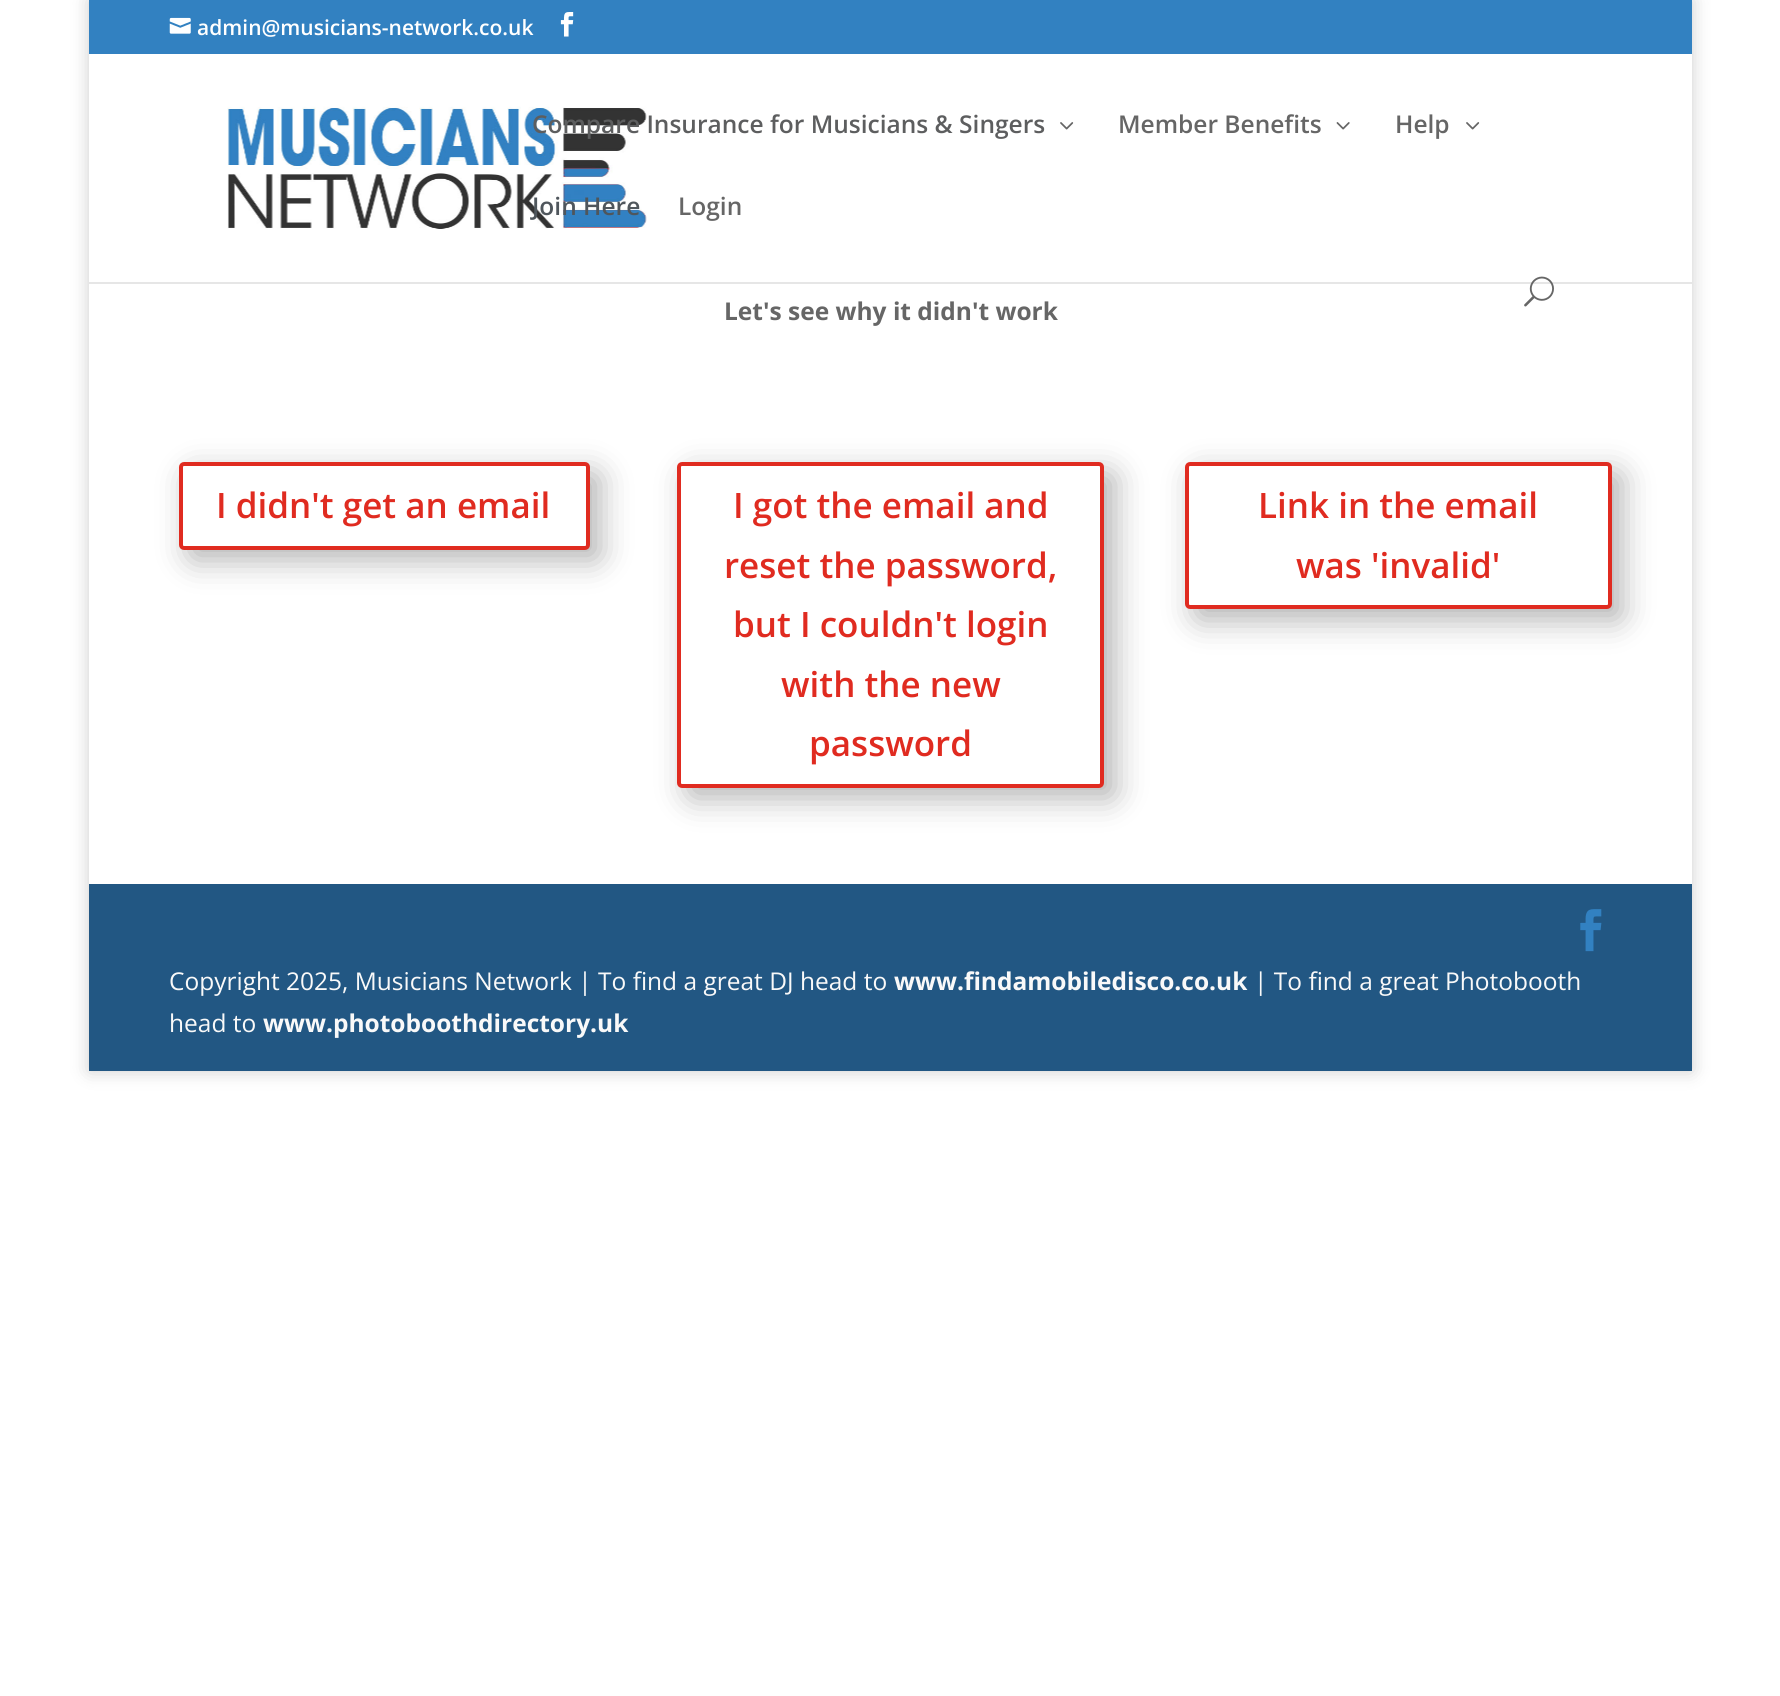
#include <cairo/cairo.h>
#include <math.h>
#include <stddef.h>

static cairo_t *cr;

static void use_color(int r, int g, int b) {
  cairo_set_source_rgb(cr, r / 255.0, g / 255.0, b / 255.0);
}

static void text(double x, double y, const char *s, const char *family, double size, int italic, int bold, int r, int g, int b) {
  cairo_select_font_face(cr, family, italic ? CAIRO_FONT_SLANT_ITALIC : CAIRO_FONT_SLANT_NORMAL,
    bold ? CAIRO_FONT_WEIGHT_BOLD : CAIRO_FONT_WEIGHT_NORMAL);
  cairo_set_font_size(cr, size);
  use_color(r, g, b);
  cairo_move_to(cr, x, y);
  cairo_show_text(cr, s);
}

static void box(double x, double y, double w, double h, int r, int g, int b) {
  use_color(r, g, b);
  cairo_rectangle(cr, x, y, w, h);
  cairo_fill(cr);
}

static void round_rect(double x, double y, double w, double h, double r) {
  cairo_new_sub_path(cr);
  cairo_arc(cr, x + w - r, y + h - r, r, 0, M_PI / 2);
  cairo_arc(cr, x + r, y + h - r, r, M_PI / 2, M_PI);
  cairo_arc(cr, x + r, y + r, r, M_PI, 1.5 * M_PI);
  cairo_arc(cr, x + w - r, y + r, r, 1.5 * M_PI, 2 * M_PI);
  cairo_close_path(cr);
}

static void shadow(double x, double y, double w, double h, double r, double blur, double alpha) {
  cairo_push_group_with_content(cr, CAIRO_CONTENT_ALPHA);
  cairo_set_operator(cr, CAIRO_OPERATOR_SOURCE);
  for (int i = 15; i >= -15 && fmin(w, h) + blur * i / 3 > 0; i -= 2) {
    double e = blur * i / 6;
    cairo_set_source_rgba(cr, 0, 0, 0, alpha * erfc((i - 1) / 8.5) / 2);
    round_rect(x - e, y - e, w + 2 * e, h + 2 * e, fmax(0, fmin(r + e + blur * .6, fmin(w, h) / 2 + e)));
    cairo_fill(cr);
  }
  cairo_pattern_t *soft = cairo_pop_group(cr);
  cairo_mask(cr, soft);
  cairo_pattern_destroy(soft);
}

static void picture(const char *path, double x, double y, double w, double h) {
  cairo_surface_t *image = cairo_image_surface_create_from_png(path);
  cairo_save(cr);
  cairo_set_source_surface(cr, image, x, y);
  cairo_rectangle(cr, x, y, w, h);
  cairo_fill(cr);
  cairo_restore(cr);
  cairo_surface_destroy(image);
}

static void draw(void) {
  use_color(255, 255, 255);
  cairo_paint(cr);
  use_color(0, 0, 0);
  shadow(89, 0, 1603, 1071, 0, 9, 0.2);
  box(89, 0, 1603, 54, 50, 129, 193);
  picture("img_01.png", 169, 17, 22, 17);
  picture("img_02.png", 560, 12, 14, 25);
  use_color(230, 230, 230);
  cairo_new_path(cr);
  cairo_move_to(cr, 89, 56);
  cairo_line_to(cr, 89, 284);
  cairo_line_to(cr, 1692, 284);
  cairo_line_to(cr, 1692, 282);
  cairo_line_to(cr, 89, 282);
  cairo_close_path(cr);
  cairo_fill(cr);
  box(89, 54, 1603, 228, 255, 255, 255);
  picture("img_03.png", 227, 106, 420, 123);
  picture("img_04.png", 1060, 122, 14, 8);
  picture("img_05.png", 1336, 122, 14, 8);
  picture("img_04.png", 1466, 122, 14, 8);
  box(89, 284, 1603, 600, 255, 255, 255);
  picture("img_06.png", 1524, 276, 30, 31);
  use_color(0, 0, 0);
  shadow(189, 473, 411, 87, 5, 16, 0.3);
  use_color(255, 255, 255);
  round_rect(181, 464, 407, 84, 3);
  cairo_fill_preserve(cr);
  use_color(224, 43, 32);
  cairo_set_line_width(cr, 4);
  cairo_stroke(cr);
  use_color(0, 0, 0);
  shadow(688, 473, 427, 325, 5, 16, 0.3);
  use_color(255, 255, 255);
  round_rect(679, 464, 423, 322, 3);
  cairo_fill_preserve(cr);
  use_color(224, 43, 32);
  cairo_stroke(cr);
  use_color(0, 0, 0);
  shadow(1195, 473, 427, 147, 5, 16, 0.3);
  use_color(255, 255, 255);
  round_rect(1187, 464, 423, 143, 3);
  cairo_fill_preserve(cr);
  use_color(224, 43, 32);
  cairo_stroke(cr);
  box(89, 884, 1603, 187, 34, 87, 131);
  picture("img_07.png", 1580, 909, 22, 43);
  text(197, 35, "admin@musicians-network.co.uk", "Open Sans SemiBold", 21, 0, 0, 255, 255, 255);
  text(532, 133, "Compare Insurance for Musicians & Singers", "Open Sans SemiBold", 24.5, 0, 0, 93, 94, 95);
  text(1118, 133, "Member Benefits", "Open Sans SemiBold", 24.5, 0, 0, 102, 102, 102);
  text(1395, 133, "Help", "Open Sans SemiBold", 24.5, 0, 0, 102, 102, 102);
  text(532, 215, "Join Here", "Open Sans SemiBold", 24.5, 0, 0, 79, 86, 92);
  text(678, 215, "Login", "Open Sans SemiBold", 24.5, 0, 0, 102, 102, 102);
  text(724, 320, "Let's see why it didn't work", "Open Sans", 24.5, 0, 1, 102, 102, 102);
  text(216, 518, "I didn't get an email", "Open Sans SemiBold", 35, 0, 0, 224, 43, 32);
  text(733, 518, "I got the email and", "Open Sans SemiBold", 35, 0, 0, 224, 43, 32);
  text(724, 578, "reset the password,", "Open Sans SemiBold", 35, 0, 0, 224, 43, 32);
  text(733, 637, "but I couldn't login", "Open Sans SemiBold", 35, 0, 0, 224, 43, 32);
  text(781, 697, "with the new", "Open Sans SemiBold", 35, 0, 0, 224, 43, 32);
  text(809, 756, "password", "Open Sans SemiBold", 35, 0, 0, 224, 43, 32);
  text(1258, 518, "Link in the email", "Open Sans SemiBold", 35, 0, 0, 224, 43, 32);
  text(1296, 578, "was 'invalid'", "Open Sans SemiBold", 35, 0, 0, 224, 43, 32);
  text(169, 990, "Copyright 2025, Musicians Network | To find a great DJ head to", "Open Sans", 24.5, 0, 0, 249, 249, 249);
  text(894, 990, "www.findamobiledisco.co.uk", "Open Sans", 24.5, 0, 1, 249, 249, 249);
  text(1254, 990, "| To find a great Photobooth", "Open Sans", 24.5, 0, 0, 249, 249, 249);
  text(169, 1032, "head to", "Open Sans", 24.5, 0, 0, 249, 249, 249);
  text(263, 1032, "www.photoboothdirectory.uk", "Open Sans", 24.5, 0, 1, 249, 249, 249);
}

int main(void) {
  cairo_surface_t *surface = cairo_image_surface_create(CAIRO_FORMAT_RGB24, 1780, 1696);
  cr = cairo_create(surface);
  cairo_font_options_t *options = cairo_font_options_create();
  cairo_font_options_set_hint_metrics(options, CAIRO_HINT_METRICS_OFF);
  cairo_font_options_set_hint_style(options, CAIRO_HINT_STYLE_NONE);
  cairo_set_font_options(cr, options);
  cairo_set_miter_limit(cr, 4);
  draw();
  cairo_surface_write_to_png(surface, "out.png");
  cairo_font_options_destroy(options);
  cairo_destroy(cr);
  cairo_surface_destroy(surface);
  return 0;
}
